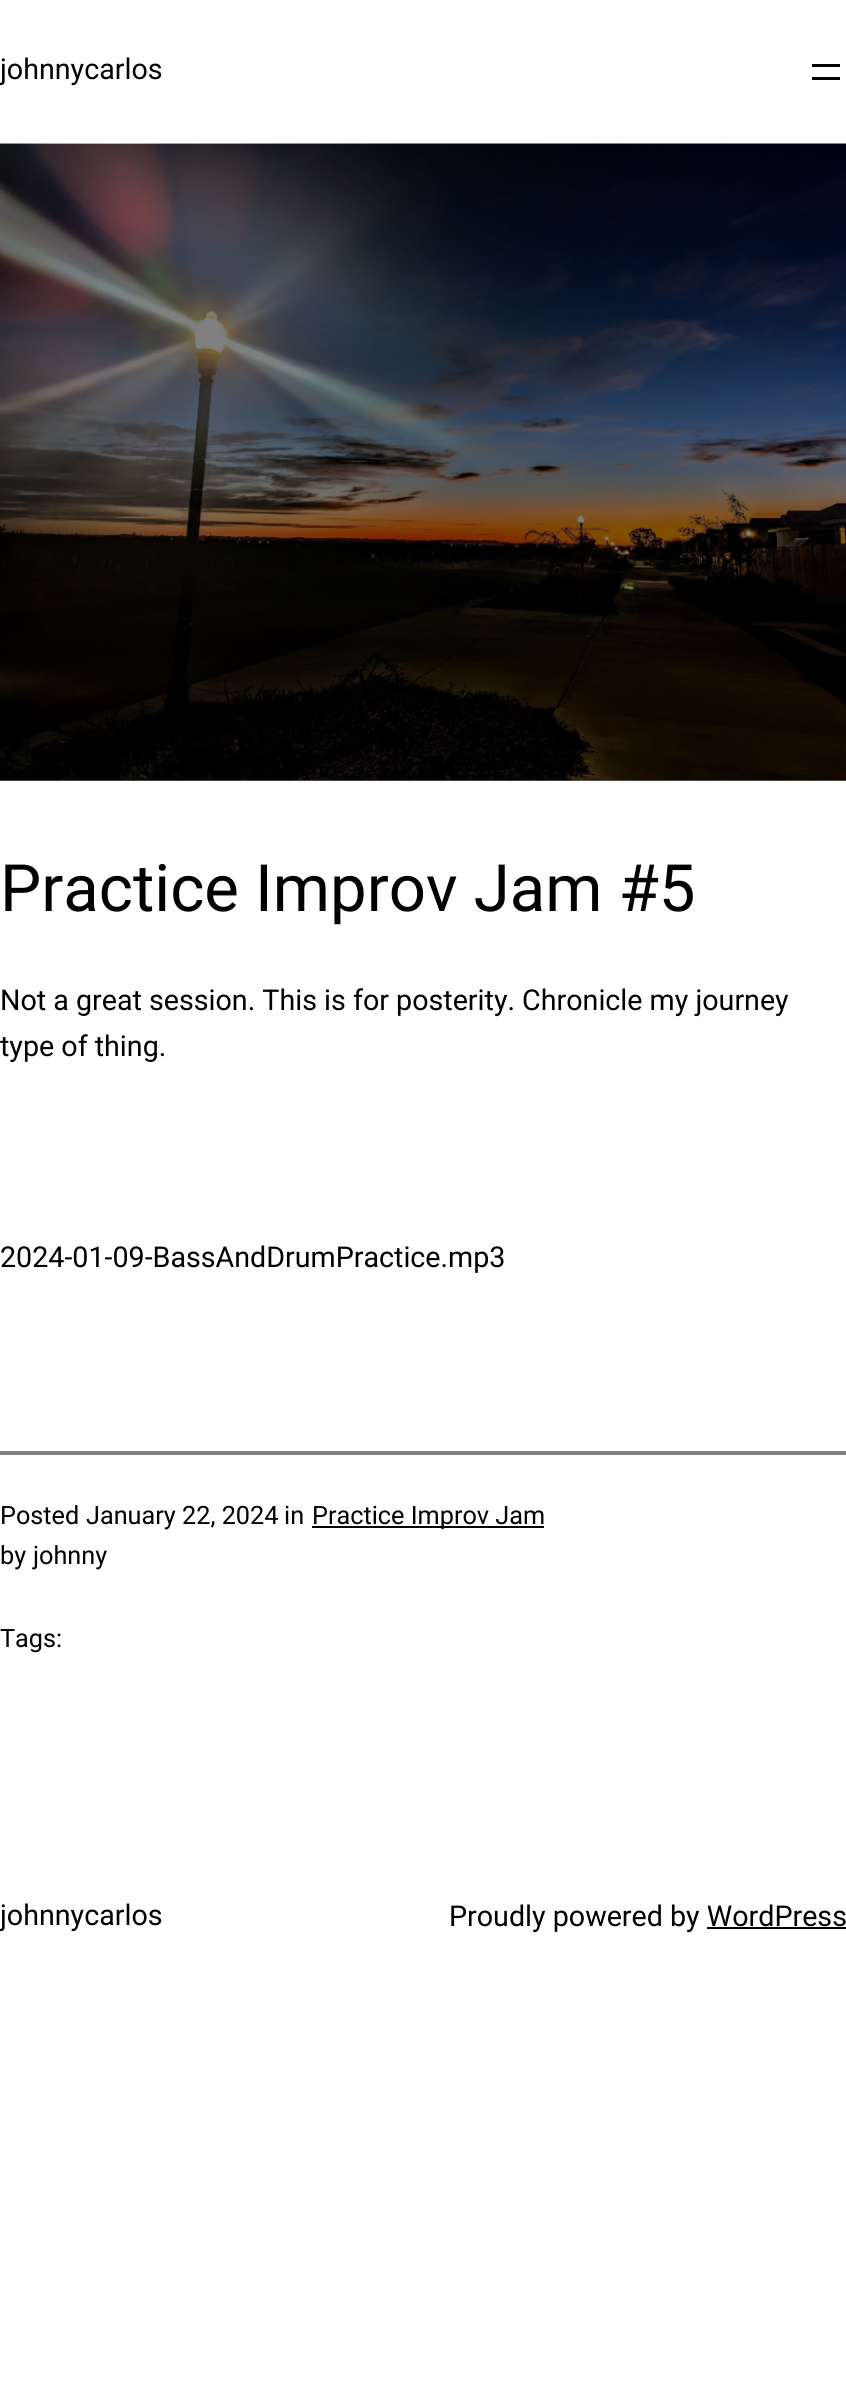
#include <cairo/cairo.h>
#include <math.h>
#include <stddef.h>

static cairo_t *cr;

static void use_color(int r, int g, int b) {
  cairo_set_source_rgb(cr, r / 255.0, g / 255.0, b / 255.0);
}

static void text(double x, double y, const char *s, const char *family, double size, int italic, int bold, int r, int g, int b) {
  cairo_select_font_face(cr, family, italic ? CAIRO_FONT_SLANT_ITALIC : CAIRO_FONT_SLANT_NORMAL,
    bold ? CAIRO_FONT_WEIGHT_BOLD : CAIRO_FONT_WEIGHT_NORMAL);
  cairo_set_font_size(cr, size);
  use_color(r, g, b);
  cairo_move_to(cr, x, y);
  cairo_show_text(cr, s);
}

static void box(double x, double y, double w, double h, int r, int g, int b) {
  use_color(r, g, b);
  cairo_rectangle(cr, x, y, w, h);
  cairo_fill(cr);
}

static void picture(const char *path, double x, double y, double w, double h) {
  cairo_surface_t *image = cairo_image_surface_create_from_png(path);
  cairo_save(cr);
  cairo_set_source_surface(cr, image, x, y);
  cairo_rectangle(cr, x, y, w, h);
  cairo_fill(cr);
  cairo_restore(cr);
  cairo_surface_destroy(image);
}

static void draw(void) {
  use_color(255, 255, 255);
  cairo_paint(cr);
  box(0, 780, 846, 1, 128, 128, 128);
  box(812, 64, 28, 3, 0, 0, 0);
  box(812, 77, 28, 3, 0, 0, 0);
  picture("img_01.png", 0, 143, 846, 638);
  box(0, 1451, 846, 4, 128, 128, 128);
  box(312, 1526, 232, 2, 0, 0, 0);
  box(707, 1927, 139, 2, 0, 0, 0);
  text(0, 79, "johnnycarlos", "Roboto", 28.65, 0, 0, 0, 0, 0);
  text(0, 911, "Practice Improv Jam #5", "Roboto", 65.25, 0, 0, 0, 0, 0);
  text(0, 1010, "Not a great session. This is for posterity. Chronicle my journey", "Roboto", 28.65, 0, 0, 0, 0, 0);
  text(0, 1056, "type of thing.", "Roboto", 28.65, 0, 0, 0, 0, 0);
  text(0, 1267, "2024-01-09-BassAndDrumPractice.mp3", "Roboto", 28.65, 0, 0, 0, 0, 0);
  text(0, 1524, "Posted", "Roboto", 25.25, 0, 0, 0, 0, 0);
  text(86, 1524, "January 22, 2024", "Roboto", 25.25, 0, 0, 0, 0, 0);
  text(284, 1524, "in", "Roboto", 25.25, 0, 0, 0, 0, 0);
  text(312, 1524, "Practice Improv Jam", "Roboto", 25.25, 0, 0, 0, 0, 0);
  text(0, 1564, "by", "Roboto", 25.25, 0, 0, 0, 0, 0);
  text(33, 1564, "johnny", "Roboto", 25.25, 0, 0, 0, 0, 0);
  text(0, 1647, "Tags:", "Roboto", 25.25, 0, 0, 0, 0, 0);
  text(0, 1925, "johnnycarlos", "Roboto", 28.65, 0, 0, 0, 0, 0);
  text(449, 1926, "Proudly powered by WordPress", "Roboto", 28.65, 0, 0, 0, 0, 0);
}

int main(void) {
  cairo_surface_t *surface = cairo_image_surface_create(CAIRO_FORMAT_RGB24, 846, 2384);
  cr = cairo_create(surface);
  cairo_font_options_t *options = cairo_font_options_create();
  cairo_font_options_set_hint_metrics(options, CAIRO_HINT_METRICS_OFF);
  cairo_font_options_set_hint_style(options, CAIRO_HINT_STYLE_NONE);
  cairo_set_font_options(cr, options);
  cairo_set_miter_limit(cr, 4);
  draw();
  cairo_surface_write_to_png(surface, "out.png");
  cairo_font_options_destroy(options);
  cairo_destroy(cr);
  cairo_surface_destroy(surface);
  return 0;
}
